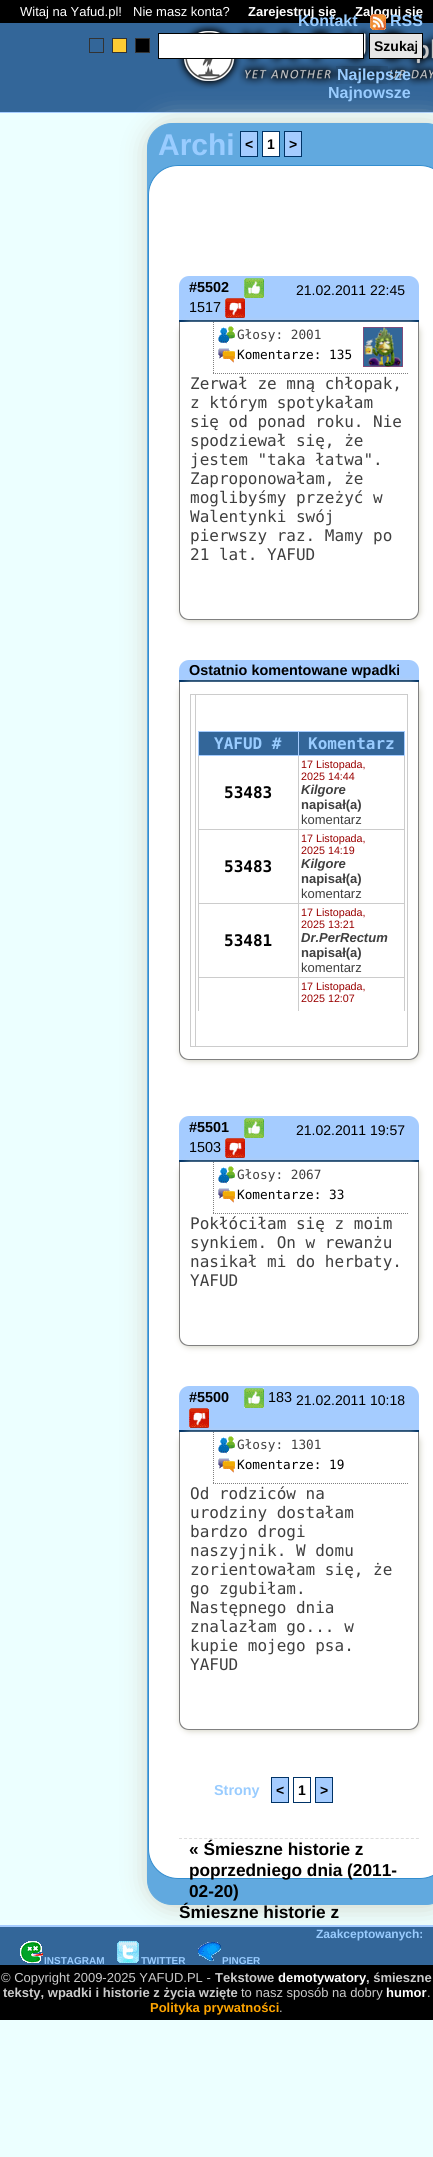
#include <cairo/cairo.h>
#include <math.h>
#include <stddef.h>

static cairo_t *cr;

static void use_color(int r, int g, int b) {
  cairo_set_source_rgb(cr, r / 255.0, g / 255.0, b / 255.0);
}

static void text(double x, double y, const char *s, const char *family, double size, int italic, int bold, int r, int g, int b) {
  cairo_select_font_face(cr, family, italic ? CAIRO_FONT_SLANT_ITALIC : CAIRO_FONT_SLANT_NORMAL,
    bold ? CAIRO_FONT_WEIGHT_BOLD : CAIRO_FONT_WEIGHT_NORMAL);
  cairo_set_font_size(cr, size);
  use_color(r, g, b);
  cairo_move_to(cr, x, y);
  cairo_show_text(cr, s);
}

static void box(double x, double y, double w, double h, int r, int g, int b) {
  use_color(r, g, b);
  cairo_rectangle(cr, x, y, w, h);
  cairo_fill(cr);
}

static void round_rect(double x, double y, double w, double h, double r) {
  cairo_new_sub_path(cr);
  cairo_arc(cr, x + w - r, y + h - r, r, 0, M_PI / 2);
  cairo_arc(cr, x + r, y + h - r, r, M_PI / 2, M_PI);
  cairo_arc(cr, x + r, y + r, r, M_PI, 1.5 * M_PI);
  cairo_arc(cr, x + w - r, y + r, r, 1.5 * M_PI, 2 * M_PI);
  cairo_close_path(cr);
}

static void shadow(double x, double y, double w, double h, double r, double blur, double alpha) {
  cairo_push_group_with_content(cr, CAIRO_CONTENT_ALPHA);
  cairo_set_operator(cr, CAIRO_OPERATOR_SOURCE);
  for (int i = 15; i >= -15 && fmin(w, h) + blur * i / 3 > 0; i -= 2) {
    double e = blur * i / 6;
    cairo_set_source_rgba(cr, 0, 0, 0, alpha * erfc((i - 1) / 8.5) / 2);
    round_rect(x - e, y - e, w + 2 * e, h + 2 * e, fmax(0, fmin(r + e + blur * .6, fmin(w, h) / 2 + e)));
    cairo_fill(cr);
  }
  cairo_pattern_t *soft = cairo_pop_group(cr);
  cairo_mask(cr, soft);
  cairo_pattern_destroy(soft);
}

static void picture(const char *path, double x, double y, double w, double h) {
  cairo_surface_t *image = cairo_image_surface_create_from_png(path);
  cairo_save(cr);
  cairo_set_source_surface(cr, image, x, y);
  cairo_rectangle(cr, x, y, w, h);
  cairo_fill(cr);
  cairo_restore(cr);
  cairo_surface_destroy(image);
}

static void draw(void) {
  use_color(236, 255, 255);
  cairo_paint(cr);
  box(0, 0, 433, 23, 0, 0, 0);
  box(0, 23, 433, 89, 51, 102, 153);
  box(0, 112, 433, 1, 165, 204, 255);
  picture("img_02.png", 176, 23, 257, 66);
  cairo_rectangle(cr, 89.5, 38.5, 14, 14);
  use_color(51, 51, 51);
  cairo_set_line_width(cr, 1);
  cairo_stroke(cr);
  use_color(255, 204, 51);
  cairo_rectangle(cr, 112.5, 38.5, 14, 14);
  cairo_fill_preserve(cr);
  use_color(51, 51, 51);
  cairo_stroke(cr);
  use_color(0, 0, 0);
  cairo_rectangle(cr, 135.5, 38.5, 14, 14);
  cairo_fill_preserve(cr);
  use_color(51, 51, 51);
  cairo_stroke(cr);
  use_color(255, 255, 255);
  cairo_rectangle(cr, 158.5, 33.5, 205, 25);
  cairo_fill_preserve(cr);
  use_color(0, 0, 0);
  cairo_stroke(cr);
  use_color(230, 230, 230);
  cairo_rectangle(cr, 369.5, 33.5, 53, 25);
  cairo_fill_preserve(cr);
  use_color(0, 0, 0);
  cairo_stroke(cr);
  use_color(210, 209, 196);
  shadow(148, 124, 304, 1782, 25, 13, 1);
  use_color(97, 169, 223);
  round_rect(147.5, 123.5, 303, 1781, 24.5);
  cairo_fill_preserve(cr);
  cairo_stroke(cr);
  use_color(165, 204, 255);
  cairo_rectangle(cr, 240.5, 131.5, 17, 25);
  cairo_fill_preserve(cr);
  use_color(0, 51, 102);
  cairo_stroke(cr);
  use_color(255, 255, 255);
  cairo_rectangle(cr, 262.5, 131.5, 17, 25);
  cairo_fill_preserve(cr);
  use_color(0, 51, 102);
  cairo_stroke(cr);
  use_color(165, 204, 255);
  cairo_rectangle(cr, 284.5, 131.5, 17, 25);
  cairo_fill_preserve(cr);
  use_color(0, 51, 102);
  cairo_stroke(cr);
  use_color(255, 255, 255);
  round_rect(148.5, 165.5, 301, 1713, 29.5);
  cairo_fill_preserve(cr);
  use_color(51, 141, 207);
  cairo_stroke(cr);
  use_color(165, 204, 255);
  cairo_new_path(cr);
  cairo_move_to(cr, 189, 276);
  cairo_line_to(cr, 409, 276);
  cairo_curve_to(cr, 414.5, 276, 419, 280.5, 419, 286);
  cairo_line_to(cr, 419, 322);
  cairo_line_to(cr, 179, 322);
  cairo_line_to(cr, 179, 286);
  cairo_curve_to(cr, 179, 280.5, 183.5, 276, 189, 276);
  cairo_close_path(cr);
  cairo_fill(cr);
  box(179, 320, 240, 2, 0, 51, 102);
  picture("img_03.png", 244, 278, 20, 20);
  cairo_save(cr);
  cairo_set_fill_rule(cr, CAIRO_FILL_RULE_EVEN_ODD);
  cairo_new_path(cr);
  cairo_move_to(cr, 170, 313);
  cairo_line_to(cr, 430, 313);
  cairo_line_to(cr, 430, 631);
  cairo_line_to(cr, 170, 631);
  cairo_close_path(cr);
  cairo_move_to(cr, 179, 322);
  cairo_line_to(cr, 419, 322);
  cairo_line_to(cr, 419, 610);
  cairo_curve_to(cr, 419, 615.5, 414.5, 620, 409, 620);
  cairo_line_to(cr, 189, 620);
  cairo_curve_to(cr, 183.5, 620, 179, 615.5, 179, 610);
  cairo_close_path(cr);
  cairo_clip(cr);
  use_color(210, 209, 196);
  shadow(180, 323, 240, 298, 10, 3, 1);
  cairo_restore(cr);
  picture("img_04.png", 225, 298, 20, 20);
  use_color(128, 128, 128);
  cairo_set_fill_rule(cr, CAIRO_FILL_RULE_EVEN_ODD);
  cairo_new_path(cr);
  cairo_move_to(cr, 179, 322);
  cairo_line_to(cr, 419, 322);
  cairo_line_to(cr, 419, 610);
  cairo_curve_to(cr, 419, 616, 415, 620, 409, 620);
  cairo_line_to(cr, 189, 620);
  cairo_curve_to(cr, 183, 620, 179, 616, 179, 610);
  cairo_close_path(cr);
  cairo_move_to(cr, 180, 322);
  cairo_line_to(cr, 418, 322);
  cairo_line_to(cr, 418, 610);
  cairo_curve_to(cr, 418, 615, 414, 619, 409, 619);
  cairo_line_to(cr, 189, 619);
  cairo_curve_to(cr, 184, 619, 180, 615, 180, 610);
  cairo_close_path(cr);
  cairo_fill(cr);
  cairo_new_path(cr);
  cairo_move_to(cr, 213, 373.5);
  cairo_line_to(cr, 408, 373.5);
  cairo_set_dash(cr, (double[]){1, 1}, 2, 0);
  cairo_stroke(cr);
  cairo_new_path(cr);
  cairo_move_to(cr, 213.5, 322);
  cairo_line_to(cr, 213.5, 374);
  cairo_stroke(cr);
  picture("img_05.png", 218, 326, 17, 18);
  picture("img_06.png", 218, 348, 17, 15);
  picture("img_07.png", 363, 327, 40, 40);
  use_color(165, 204, 255);
  cairo_new_path(cr);
  cairo_move_to(cr, 189, 660);
  cairo_line_to(cr, 409, 660);
  cairo_curve_to(cr, 414.5, 660, 419, 664.5, 419, 670);
  cairo_line_to(cr, 419, 682);
  cairo_line_to(cr, 179, 682);
  cairo_line_to(cr, 179, 670);
  cairo_curve_to(cr, 179, 664.5, 183.5, 660, 189, 660);
  cairo_close_path(cr);
  cairo_fill(cr);
  box(179, 680, 240, 2, 0, 51, 102);
  cairo_save(cr);
  cairo_new_path(cr);
  cairo_move_to(cr, 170, 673);
  cairo_line_to(cr, 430, 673);
  cairo_line_to(cr, 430, 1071);
  cairo_line_to(cr, 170, 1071);
  cairo_close_path(cr);
  cairo_move_to(cr, 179, 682);
  cairo_line_to(cr, 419, 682);
  cairo_line_to(cr, 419, 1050);
  cairo_curve_to(cr, 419, 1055.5, 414.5, 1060, 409, 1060);
  cairo_line_to(cr, 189, 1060);
  cairo_curve_to(cr, 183.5, 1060, 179, 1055.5, 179, 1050);
  cairo_close_path(cr);
  cairo_clip(cr);
  use_color(210, 209, 196);
  shadow(180, 683, 240, 378, 10, 3, 1);
  cairo_restore(cr);
  use_color(128, 128, 128);
  cairo_new_path(cr);
  cairo_move_to(cr, 179, 682);
  cairo_line_to(cr, 419, 682);
  cairo_line_to(cr, 419, 1050);
  cairo_curve_to(cr, 419, 1056, 415, 1060, 409, 1060);
  cairo_line_to(cr, 189, 1060);
  cairo_curve_to(cr, 183, 1060, 179, 1056, 179, 1050);
  cairo_close_path(cr);
  cairo_move_to(cr, 180, 682);
  cairo_line_to(cr, 418, 682);
  cairo_line_to(cr, 418, 1050);
  cairo_curve_to(cr, 418, 1055, 414, 1059, 409, 1059);
  cairo_line_to(cr, 189, 1059);
  cairo_curve_to(cr, 184, 1059, 180, 1055, 180, 1050);
  cairo_close_path(cr);
  cairo_fill(cr);
  box(195, 694, 213, 1, 204, 204, 204);
  box(407, 694, 1, 353, 204, 204, 204);
  box(195, 1046, 213, 1, 204, 204, 204);
  box(195, 694, 1, 353, 204, 204, 204);
  box(190, 694, 6, 1, 204, 204, 204);
  box(190, 1046, 6, 1, 204, 204, 204);
  box(190, 694, 1, 353, 204, 204, 204);
  box(404, 756, 1, 255, 204, 204, 204);
  box(198, 756, 1, 255, 204, 204, 204);
  box(199, 732, 99, 23, 51, 102, 153);
  box(298, 731, 107, 1, 165, 204, 255);
  box(404, 731, 1, 25, 165, 204, 255);
  box(298, 829, 107, 1, 204, 204, 204);
  box(298, 903, 107, 1, 204, 204, 204);
  box(298, 977, 107, 1, 204, 204, 204);
  box(298, 977, 1, 34, 204, 204, 204);
  box(198, 977, 101, 1, 204, 204, 204);
  box(298, 903, 1, 75, 204, 204, 204);
  box(198, 903, 101, 1, 204, 204, 204);
  box(298, 829, 1, 75, 204, 204, 204);
  box(198, 829, 101, 1, 204, 204, 204);
  box(298, 755, 1, 75, 204, 204, 204);
  box(298, 755, 107, 1, 165, 204, 255);
  box(298, 731, 1, 25, 165, 204, 255);
  box(198, 731, 101, 1, 165, 204, 255);
  box(198, 755, 101, 1, 165, 204, 255);
  box(198, 731, 1, 25, 165, 204, 255);
  box(299, 732, 105, 23, 51, 102, 153);
  use_color(165, 204, 255);
  cairo_new_path(cr);
  cairo_move_to(cr, 189, 1116);
  cairo_line_to(cr, 409, 1116);
  cairo_curve_to(cr, 414.5, 1116, 419, 1120.5, 419, 1126);
  cairo_line_to(cr, 419, 1162);
  cairo_line_to(cr, 179, 1162);
  cairo_line_to(cr, 179, 1126);
  cairo_curve_to(cr, 179, 1120.5, 183.5, 1116, 189, 1116);
  cairo_close_path(cr);
  cairo_fill(cr);
  box(179, 1160, 240, 2, 0, 51, 102);
  picture("img_03.png", 244, 1118, 20, 20);
  cairo_save(cr);
  cairo_new_path(cr);
  cairo_move_to(cr, 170, 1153);
  cairo_line_to(cr, 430, 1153);
  cairo_line_to(cr, 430, 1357);
  cairo_line_to(cr, 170, 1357);
  cairo_close_path(cr);
  cairo_move_to(cr, 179, 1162);
  cairo_line_to(cr, 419, 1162);
  cairo_line_to(cr, 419, 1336);
  cairo_curve_to(cr, 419, 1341.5, 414.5, 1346, 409, 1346);
  cairo_line_to(cr, 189, 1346);
  cairo_curve_to(cr, 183.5, 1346, 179, 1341.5, 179, 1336);
  cairo_close_path(cr);
  cairo_clip(cr);
  use_color(210, 209, 196);
  shadow(180, 1163, 240, 184, 10, 3, 1);
  cairo_restore(cr);
  picture("img_04.png", 225, 1138, 20, 20);
  use_color(128, 128, 128);
  cairo_new_path(cr);
  cairo_move_to(cr, 179, 1162);
  cairo_line_to(cr, 419, 1162);
  cairo_line_to(cr, 419, 1336);
  cairo_curve_to(cr, 419, 1342, 415, 1346, 409, 1346);
  cairo_line_to(cr, 189, 1346);
  cairo_curve_to(cr, 183, 1346, 179, 1342, 179, 1336);
  cairo_close_path(cr);
  cairo_move_to(cr, 180, 1162);
  cairo_line_to(cr, 418, 1162);
  cairo_line_to(cr, 418, 1336);
  cairo_curve_to(cr, 418, 1341, 414, 1345, 409, 1345);
  cairo_line_to(cr, 189, 1345);
  cairo_curve_to(cr, 184, 1345, 180, 1341, 180, 1336);
  cairo_close_path(cr);
  cairo_fill(cr);
  cairo_new_path(cr);
  cairo_move_to(cr, 213, 1213.5);
  cairo_line_to(cr, 408, 1213.5);
  cairo_stroke(cr);
  cairo_new_path(cr);
  cairo_move_to(cr, 213.5, 1162);
  cairo_line_to(cr, 213.5, 1214);
  cairo_stroke(cr);
  picture("img_05.png", 218, 1166, 17, 18);
  picture("img_06.png", 218, 1188, 17, 15);
  use_color(165, 204, 255);
  cairo_new_path(cr);
  cairo_move_to(cr, 189, 1386);
  cairo_line_to(cr, 409, 1386);
  cairo_curve_to(cr, 414.5, 1386, 419, 1390.5, 419, 1396);
  cairo_line_to(cr, 419, 1432);
  cairo_line_to(cr, 179, 1432);
  cairo_line_to(cr, 179, 1396);
  cairo_curve_to(cr, 179, 1390.5, 183.5, 1386, 189, 1386);
  cairo_close_path(cr);
  cairo_fill(cr);
  box(179, 1430, 240, 2, 0, 51, 102);
  picture("img_03.png", 244, 1388, 20, 20);
  cairo_save(cr);
  cairo_new_path(cr);
  cairo_move_to(cr, 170, 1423);
  cairo_line_to(cr, 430, 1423);
  cairo_line_to(cr, 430, 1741);
  cairo_line_to(cr, 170, 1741);
  cairo_close_path(cr);
  cairo_move_to(cr, 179, 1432);
  cairo_line_to(cr, 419, 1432);
  cairo_line_to(cr, 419, 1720);
  cairo_curve_to(cr, 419, 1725.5, 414.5, 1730, 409, 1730);
  cairo_line_to(cr, 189, 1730);
  cairo_curve_to(cr, 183.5, 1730, 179, 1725.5, 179, 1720);
  cairo_close_path(cr);
  cairo_clip(cr);
  use_color(210, 209, 196);
  shadow(180, 1433, 240, 298, 10, 3, 1);
  cairo_restore(cr);
  picture("img_04.png", 189, 1408, 20, 20);
  use_color(128, 128, 128);
  cairo_new_path(cr);
  cairo_move_to(cr, 179, 1432);
  cairo_line_to(cr, 419, 1432);
  cairo_line_to(cr, 419, 1720);
  cairo_curve_to(cr, 419, 1726, 415, 1730, 409, 1730);
  cairo_line_to(cr, 189, 1730);
  cairo_curve_to(cr, 183, 1730, 179, 1726, 179, 1720);
  cairo_close_path(cr);
  cairo_move_to(cr, 180, 1432);
  cairo_line_to(cr, 418, 1432);
  cairo_line_to(cr, 418, 1720);
  cairo_curve_to(cr, 418, 1725, 414, 1729, 409, 1729);
  cairo_line_to(cr, 189, 1729);
  cairo_curve_to(cr, 184, 1729, 180, 1725, 180, 1720);
  cairo_close_path(cr);
  cairo_fill(cr);
  cairo_new_path(cr);
  cairo_move_to(cr, 213, 1483.5);
  cairo_line_to(cr, 408, 1483.5);
  cairo_stroke(cr);
  cairo_new_path(cr);
  cairo_move_to(cr, 213.5, 1432);
  cairo_line_to(cr, 213.5, 1484);
  cairo_stroke(cr);
  picture("img_05.png", 218, 1436, 17, 18);
  picture("img_06.png", 218, 1458, 17, 15);
  use_color(165, 204, 255);
  cairo_rectangle(cr, 271.5, 1777.5, 17, 25);
  cairo_fill_preserve(cr);
  use_color(0, 51, 102);
  cairo_set_dash(cr, NULL, 0, 0);
  cairo_stroke(cr);
  cairo_rectangle(cr, 293.5, 1777.5, 17, 25);
  cairo_stroke(cr);
  use_color(165, 204, 255);
  cairo_rectangle(cr, 315.5, 1777.5, 17, 25);
  cairo_fill_preserve(cr);
  use_color(0, 51, 102);
  cairo_stroke(cr);
  cairo_new_path(cr);
  cairo_move_to(cr, 179, 1838.5);
  cairo_line_to(cr, 419, 1838.5);
  use_color(221, 221, 221);
  cairo_set_dash(cr, (double[]){3, 2.04}, 2, 0);
  cairo_stroke(cr);
  box(0, 1927, 433, 38, 51, 102, 153);
  box(0, 1925, 433, 2, 165, 204, 255);
  picture("img_08.png", 20, 1941, 23, 22);
  picture("img_09.png", 117, 1941, 22, 22);
  picture("img_10.png", 198, 1942, 23, 19);
  box(0, 1965, 433, 55, 0, 0, 0);
  text(20, 16, "Witaj na Yafud.pl!", "Liberation Sans", 13, 0, 0, 255, 255, 255);
  text(133, 16, "Nie masz konta?", "Liberation Sans", 13, 0, 0, 255, 255, 255);
  text(248, 16, "Zarejestruj się", "Liberation Sans", 13, 0, 1, 255, 255, 255);
  text(355, 16, "Zaloguj się", "Liberation Sans", 13, 0, 1, 255, 255, 255);
  text(298, 26, "Kontakt", "Liberation Sans", 16, 0, 1, 153, 204, 255);
  picture("img_01.png", 370, 14, 16, 16);
  text(390, 26, "RSS", "Liberation Sans", 16, 0, 1, 153, 204, 255);
  text(337, 80, "Najlepsze", "Liberation Sans", 16, 0, 1, 153, 204, 255);
  text(328, 98, "Najnowsze", "Liberation Sans", 16, 0, 1, 153, 204, 255);
  text(374, 51, "Szukaj", "Liberation Sans", 14, 0, 1, 0, 0, 0);
  text(158, 155, "Archi", "Liberation Sans", 30, 0, 1, 153, 204, 255);
  text(245, 149, "<", "Liberation Sans", 14, 0, 1, 0, 0, 0);
  text(267, 149, "1", "Liberation Sans", 14, 0, 1, 0, 0, 0);
  text(289, 149, ">", "Liberation Sans", 14, 0, 1, 0, 0, 0);
  text(189, 292, "#5502", "Liberation Sans", 14.4, 0, 1, 0, 0, 0);
  text(189, 312, "1517", "Liberation Sans", 14.4, 0, 0, 0, 0, 0);
  text(296, 295, "21.02.2011 22:45", "Liberation Sans", 14, 0, 0, 0, 0, 0);
  text(237, 339, "Głosy: 2001", "DejaVu Sans Mono", 12.75, 0, 0, 63, 63, 63);
  text(237, 359, "Komentarze: 135", "DejaVu Sans Mono", 12.75, 0, 0, 0, 0, 0);
  text(190, 389, "Zerwał ze mną chłopak,", "DejaVu Sans Mono", 16, 0, 0, 63, 63, 63);
  text(190, 408, "z którym spotykałam", "DejaVu Sans Mono", 16, 0, 0, 63, 63, 63);
  text(190, 427, "się od ponad roku. Nie", "DejaVu Sans Mono", 16, 0, 0, 63, 63, 63);
  text(190, 446, "spodziewał się, że", "DejaVu Sans Mono", 16, 0, 0, 63, 63, 63);
  text(190, 465, "jestem \"taka łatwa\".", "DejaVu Sans Mono", 16, 0, 0, 63, 63, 63);
  text(190, 484, "Zaproponowałam, że", "DejaVu Sans Mono", 16, 0, 0, 63, 63, 63);
  text(190, 503, "moglibyśmy przeżyć w", "DejaVu Sans Mono", 16, 0, 0, 63, 63, 63);
  text(190, 522, "Walentynki swój", "DejaVu Sans Mono", 16, 0, 0, 63, 63, 63);
  text(190, 541, "pierwszy raz. Mamy po", "DejaVu Sans Mono", 16, 0, 0, 63, 63, 63);
  text(190, 560, "21 lat. YAFUD", "DejaVu Sans Mono", 16, 0, 0, 63, 63, 63);
  text(189, 675, "Ostatnio komentowane wpadki", "Liberation Sans", 14.4, 0, 1, 0, 0, 0);
  text(214, 749, "YAFUD #", "DejaVu Sans Mono", 16, 0, 1, 153, 204, 255);
  text(308, 749, "Komentarz", "DejaVu Sans Mono", 16, 0, 1, 153, 204, 255);
  text(224, 798, "53483", "DejaVu Sans Mono", 16, 0, 1, 0, 0, 0);
  text(301, 768, "17 Listopada,", "Liberation Sans", 10.75, 0, 0, 153, 0, 0);
  text(301, 780, "2025 14:44", "Liberation Sans", 10.75, 0, 0, 153, 0, 0);
  text(301, 794, "Kilgore", "Liberation Sans", 13, 1, 1, 63, 63, 63);
  text(301, 809, "napisał(a)", "Liberation Sans", 13, 0, 1, 63, 63, 63);
  text(301, 824, "komentarz", "Liberation Sans", 13, 0, 0, 63, 63, 63);
  text(224, 872, "53483", "DejaVu Sans Mono", 16, 0, 1, 0, 0, 0);
  text(301, 842, "17 Listopada,", "Liberation Sans", 10.75, 0, 0, 153, 0, 0);
  text(301, 854, "2025 14:19", "Liberation Sans", 10.75, 0, 0, 153, 0, 0);
  text(301, 868, "Kilgore", "Liberation Sans", 13, 1, 1, 63, 63, 63);
  text(301, 883, "napisał(a)", "Liberation Sans", 13, 0, 1, 63, 63, 63);
  text(301, 898, "komentarz", "Liberation Sans", 13, 0, 0, 63, 63, 63);
  text(224, 946, "53481", "DejaVu Sans Mono", 16, 0, 1, 0, 0, 0);
  text(301, 916, "17 Listopada,", "Liberation Sans", 10.75, 0, 0, 153, 0, 0);
  text(301, 928, "2025 13:21", "Liberation Sans", 10.75, 0, 0, 153, 0, 0);
  text(301, 942, "Dr.PerRectum", "Liberation Sans", 13, 1, 1, 63, 63, 63);
  text(301, 957, "napisał(a)", "Liberation Sans", 13, 0, 1, 63, 63, 63);
  text(301, 972, "komentarz", "Liberation Sans", 13, 0, 0, 63, 63, 63);
  text(301, 990, "17 Listopada,", "Liberation Sans", 10.75, 0, 0, 153, 0, 0);
  text(301, 1002, "2025 12:07", "Liberation Sans", 10.75, 0, 0, 153, 0, 0);
  text(189, 1132, "#5501", "Liberation Sans", 14.4, 0, 1, 0, 0, 0);
  text(189, 1152, "1503", "Liberation Sans", 14.4, 0, 0, 0, 0, 0);
  text(296, 1135, "21.02.2011 19:57", "Liberation Sans", 14, 0, 0, 0, 0, 0);
  text(237, 1179, "Głosy: 2067", "DejaVu Sans Mono", 12.75, 0, 0, 63, 63, 63);
  text(237, 1199, "Komentarze: 33", "DejaVu Sans Mono", 12.75, 0, 0, 0, 0, 0);
  text(190, 1229, "Pokłóciłam się z moim", "DejaVu Sans Mono", 16, 0, 0, 63, 63, 63);
  text(190, 1248, "synkiem. On w rewanżu", "DejaVu Sans Mono", 16, 0, 0, 63, 63, 63);
  text(190, 1267, "nasikał mi do herbaty.", "DejaVu Sans Mono", 16, 0, 0, 63, 63, 63);
  text(190, 1286, "YAFUD", "DejaVu Sans Mono", 16, 0, 0, 63, 63, 63);
  text(189, 1402, "#5500", "Liberation Sans", 14.4, 0, 1, 0, 0, 0);
  text(268, 1402, "183", "Liberation Sans", 14.4, 0, 0, 0, 0, 0);
  text(296, 1405, "21.02.2011 10:18", "Liberation Sans", 14, 0, 0, 0, 0, 0);
  text(237, 1449, "Głosy: 1301", "DejaVu Sans Mono", 12.75, 0, 0, 63, 63, 63);
  text(237, 1469, "Komentarze: 19", "DejaVu Sans Mono", 12.75, 0, 0, 0, 0, 0);
  text(190, 1499, "Od rodziców na", "DejaVu Sans Mono", 16, 0, 0, 63, 63, 63);
  text(190, 1518, "urodziny dostałam", "DejaVu Sans Mono", 16, 0, 0, 63, 63, 63);
  text(190, 1537, "bardzo drogi", "DejaVu Sans Mono", 16, 0, 0, 63, 63, 63);
  text(190, 1556, "naszyjnik. W domu", "DejaVu Sans Mono", 16, 0, 0, 63, 63, 63);
  text(190, 1575, "zorientowałam się, że", "DejaVu Sans Mono", 16, 0, 0, 63, 63, 63);
  text(190, 1594, "go zgubiłam.", "DejaVu Sans Mono", 16, 0, 0, 63, 63, 63);
  text(190, 1613, "Następnego dnia", "DejaVu Sans Mono", 16, 0, 0, 63, 63, 63);
  text(190, 1632, "znalazłam go... w", "DejaVu Sans Mono", 16, 0, 0, 63, 63, 63);
  text(190, 1651, "kupie mojego psa.", "DejaVu Sans Mono", 16, 0, 0, 63, 63, 63);
  text(190, 1670, "YAFUD", "DejaVu Sans Mono", 16, 0, 0, 63, 63, 63);
  text(214, 1795, "Strony", "Liberation Sans", 14.4, 0, 1, 153, 204, 255);
  text(276, 1795, "<", "Liberation Sans", 14, 0, 1, 0, 0, 0);
  text(298, 1795, "1", "Liberation Sans", 14, 0, 1, 0, 0, 0);
  text(320, 1795, ">", "Liberation Sans", 14, 0, 1, 0, 0, 0);
  text(189, 1855, "« Śmieszne historie z", "Liberation Sans", 17.25, 0, 1, 0, 0, 0);
  text(189, 1876, "poprzedniego dnia (2011-", "Liberation Sans", 17.25, 0, 1, 0, 0, 0);
  text(189, 1897, "02-20)", "Liberation Sans", 17.25, 0, 1, 0, 0, 0);
  text(179, 1918, "Śmieszne historie z", "Liberation Sans", 17.25, 0, 1, 0, 0, 0);
  text(316, 1938, "Zaakceptowanych:", "Liberation Sans", 12, 0, 1, 153, 204, 255);
  text(44, 1964, "INSTAGRAM", "Liberation Sans", 10, 0, 1, 153, 204, 255);
  text(141, 1964, "TWITTER", "Liberation Sans", 10, 0, 1, 153, 204, 255);
  text(222, 1964, "PINGER", "Liberation Sans", 10, 0, 1, 153, 204, 255);
  text(1, 1982, "© Copyright 2009-2025 YAFUD.PL -", "Liberation Sans", 13, 0, 0, 204, 204, 204);
  text(215, 1982, "Tekstowe", "Liberation Sans", 13, 0, 1, 204, 204, 204);
  text(278, 1982, "demotywatory", "Liberation Sans", 13, 0, 1, 255, 255, 255);
  text(366, 1982, ", śmieszne", "Liberation Sans", 13, 0, 1, 204, 204, 204);
  text(3, 1997, "teksty, wpadki i historie z życia wzięte", "Liberation Sans", 13, 0, 1, 204, 204, 204);
  text(241, 1997, "to nasz sposób na dobry", "Liberation Sans", 13, 0, 0, 204, 204, 204);
  text(386, 1997, "humor", "Liberation Sans", 13, 0, 1, 255, 255, 255);
  text(427, 1997, ".", "Liberation Sans", 13, 0, 0, 204, 204, 204);
  text(150, 2012, "Polityka prywatności", "Liberation Sans", 13, 0, 1, 255, 165, 0);
  text(279, 2012, ".", "Liberation Sans", 13, 0, 0, 204, 204, 204);
}

int main(void) {
  cairo_surface_t *surface = cairo_image_surface_create(CAIRO_FORMAT_RGB24, 433, 2157);
  cr = cairo_create(surface);
  cairo_font_options_t *options = cairo_font_options_create();
  cairo_font_options_set_hint_metrics(options, CAIRO_HINT_METRICS_OFF);
  cairo_font_options_set_hint_style(options, CAIRO_HINT_STYLE_NONE);
  cairo_set_font_options(cr, options);
  cairo_set_miter_limit(cr, 4);
  draw();
  cairo_surface_write_to_png(surface, "out.png");
  cairo_font_options_destroy(options);
  cairo_destroy(cr);
  cairo_surface_destroy(surface);
  return 0;
}
